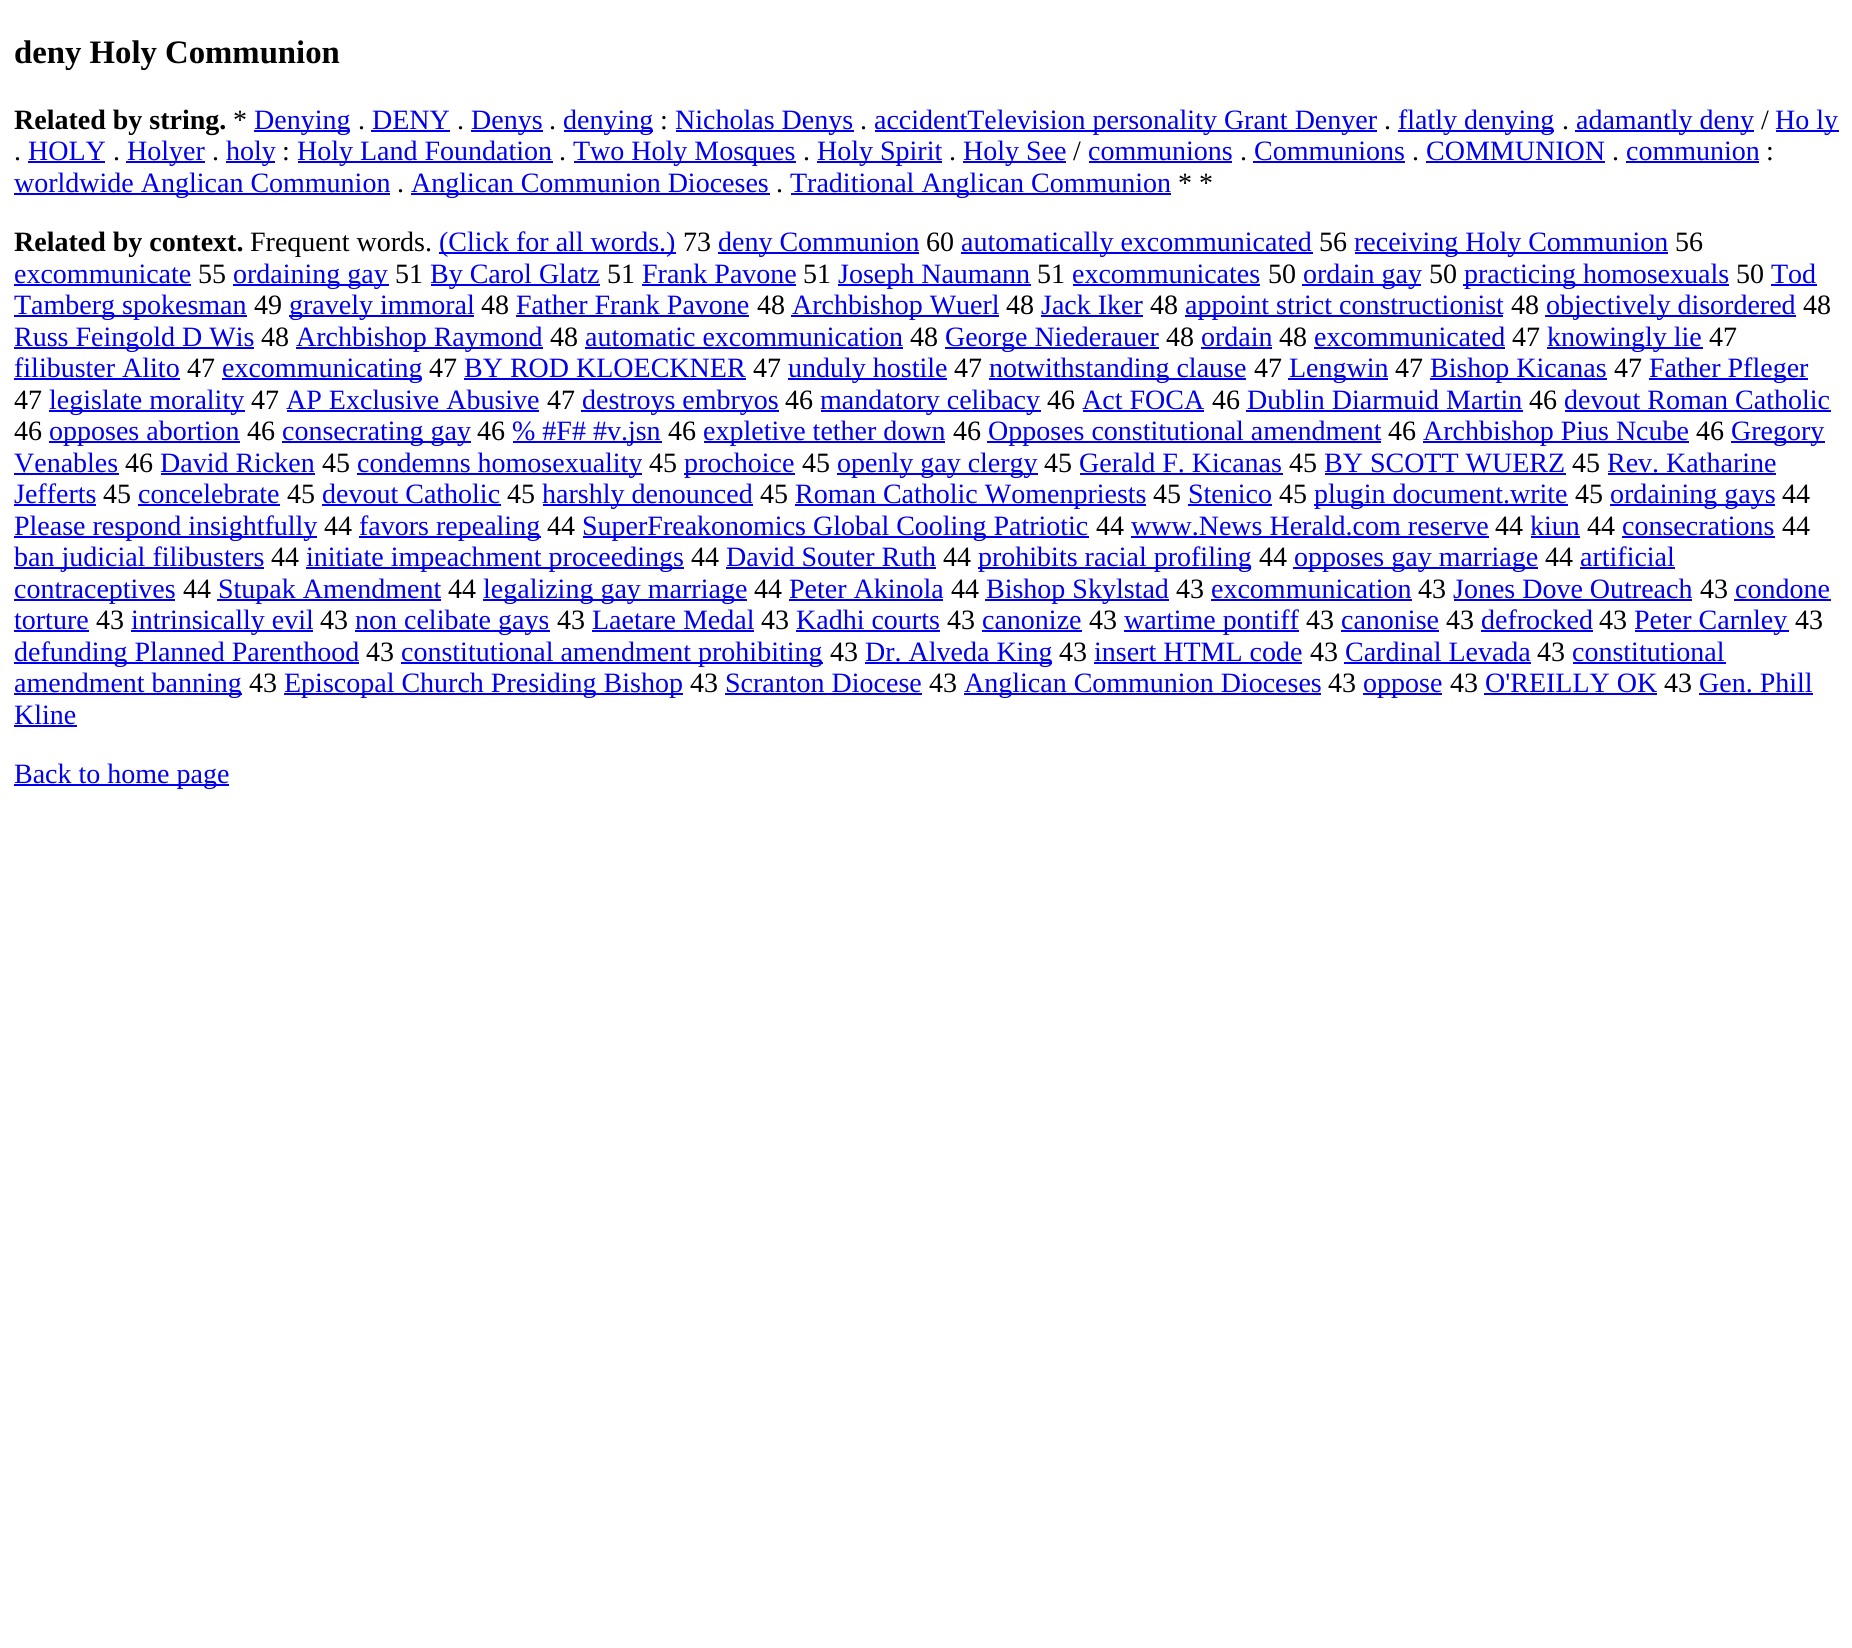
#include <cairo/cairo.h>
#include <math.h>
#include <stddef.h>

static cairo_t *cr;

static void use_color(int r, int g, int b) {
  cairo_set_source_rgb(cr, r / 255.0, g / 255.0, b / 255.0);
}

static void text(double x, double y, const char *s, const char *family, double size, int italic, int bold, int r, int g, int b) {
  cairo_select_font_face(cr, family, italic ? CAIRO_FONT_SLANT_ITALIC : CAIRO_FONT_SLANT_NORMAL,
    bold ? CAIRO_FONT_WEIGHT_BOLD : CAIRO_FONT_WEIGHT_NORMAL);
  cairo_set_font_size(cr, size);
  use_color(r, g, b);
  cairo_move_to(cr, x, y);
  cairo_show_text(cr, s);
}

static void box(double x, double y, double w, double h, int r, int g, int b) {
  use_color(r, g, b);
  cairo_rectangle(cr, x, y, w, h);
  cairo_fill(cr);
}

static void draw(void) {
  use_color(255, 255, 255);
  cairo_paint(cr);
  box(254, 130, 96, 2, 0, 0, 238);
  box(371, 130, 79, 2, 0, 0, 238);
  box(471, 130, 72, 2, 0, 0, 238);
  box(564, 130, 89, 2, 0, 0, 238);
  box(676, 130, 178, 2, 0, 0, 238);
  box(875, 130, 502, 2, 0, 0, 238);
  box(1398, 130, 156, 2, 0, 0, 238);
  box(1575, 130, 179, 2, 0, 0, 238);
  box(1776, 130, 63, 2, 0, 0, 238);
  box(28, 161, 77, 2, 0, 0, 238);
  box(126, 161, 79, 2, 0, 0, 238);
  box(226, 161, 49, 2, 0, 0, 238);
  box(298, 161, 255, 2, 0, 0, 238);
  box(574, 161, 222, 2, 0, 0, 238);
  box(817, 161, 125, 2, 0, 0, 238);
  box(963, 161, 103, 2, 0, 0, 238);
  box(1089, 161, 143, 2, 0, 0, 238);
  box(1253, 161, 152, 2, 0, 0, 238);
  box(1426, 161, 179, 2, 0, 0, 238);
  box(1626, 161, 133, 2, 0, 0, 238);
  box(14, 193, 376, 2, 0, 0, 238);
  box(411, 193, 359, 2, 0, 0, 238);
  box(791, 193, 380, 2, 0, 0, 238);
  box(439, 252, 237, 2, 0, 0, 238);
  box(718, 252, 201, 2, 0, 0, 238);
  box(961, 252, 352, 2, 0, 0, 238);
  box(1355, 252, 313, 2, 0, 0, 238);
  box(14, 284, 177, 2, 0, 0, 238);
  box(233, 284, 156, 2, 0, 0, 238);
  box(431, 284, 169, 2, 0, 0, 238);
  box(642, 284, 154, 2, 0, 0, 238);
  box(838, 284, 193, 2, 0, 0, 238);
  box(1073, 284, 187, 2, 0, 0, 238);
  box(1302, 284, 119, 2, 0, 0, 238);
  box(1463, 284, 266, 2, 0, 0, 238);
  box(1771, 284, 46, 2, 0, 0, 238);
  box(14, 315, 233, 2, 0, 0, 238);
  box(289, 315, 185, 2, 0, 0, 238);
  box(516, 315, 233, 2, 0, 0, 238);
  box(791, 315, 208, 2, 0, 0, 238);
  box(1041, 315, 102, 2, 0, 0, 238);
  box(1185, 315, 318, 2, 0, 0, 238);
  box(1545, 315, 251, 2, 0, 0, 238);
  box(14, 347, 240, 2, 0, 0, 238);
  box(296, 347, 247, 2, 0, 0, 238);
  box(585, 347, 318, 2, 0, 0, 238);
  box(945, 347, 214, 2, 0, 0, 238);
  box(1201, 347, 71, 2, 0, 0, 238);
  box(1314, 347, 191, 2, 0, 0, 238);
  box(1547, 347, 156, 2, 0, 0, 238);
  box(14, 378, 166, 2, 0, 0, 238);
  box(222, 378, 200, 2, 0, 0, 238);
  box(464, 378, 282, 2, 0, 0, 238);
  box(788, 378, 159, 2, 0, 0, 238);
  box(989, 378, 257, 2, 0, 0, 238);
  box(1288, 378, 100, 2, 0, 0, 238);
  box(1430, 378, 177, 2, 0, 0, 238);
  box(1649, 378, 159, 2, 0, 0, 238);
  box(49, 410, 196, 2, 0, 0, 238);
  box(287, 410, 252, 2, 0, 0, 238);
  box(581, 410, 198, 2, 0, 0, 238);
  box(821, 410, 220, 2, 0, 0, 238);
  box(1083, 410, 121, 2, 0, 0, 238);
  box(1246, 410, 277, 2, 0, 0, 238);
  box(1565, 410, 266, 2, 0, 0, 238);
  box(49, 441, 191, 2, 0, 0, 238);
  box(282, 441, 189, 2, 0, 0, 238);
  box(513, 441, 149, 2, 0, 0, 238);
  box(704, 441, 241, 2, 0, 0, 238);
  box(987, 441, 394, 2, 0, 0, 238);
  box(1423, 441, 266, 2, 0, 0, 238);
  box(1731, 441, 94, 2, 0, 0, 238);
  box(14, 473, 105, 2, 0, 0, 238);
  box(161, 473, 154, 2, 0, 0, 238);
  box(357, 473, 285, 2, 0, 0, 238);
  box(684, 473, 111, 2, 0, 0, 238);
  box(837, 473, 201, 2, 0, 0, 238);
  box(1080, 473, 203, 2, 0, 0, 238);
  box(1325, 473, 241, 2, 0, 0, 238);
  box(1608, 473, 168, 2, 0, 0, 238);
  box(14, 504, 82, 2, 0, 0, 238);
  box(138, 504, 142, 2, 0, 0, 238);
  box(322, 504, 179, 2, 0, 0, 238);
  box(543, 504, 210, 2, 0, 0, 238);
  box(795, 504, 351, 2, 0, 0, 238);
  box(1188, 504, 84, 2, 0, 0, 238);
  box(1314, 504, 254, 2, 0, 0, 238);
  box(1610, 504, 165, 2, 0, 0, 238);
  box(14, 536, 303, 2, 0, 0, 238);
  box(359, 536, 182, 2, 0, 0, 238);
  box(583, 536, 506, 2, 0, 0, 238);
  box(1131, 536, 358, 2, 0, 0, 238);
  box(1531, 536, 49, 2, 0, 0, 238);
  box(1622, 536, 153, 2, 0, 0, 238);
  box(14, 567, 250, 2, 0, 0, 238);
  box(306, 567, 378, 2, 0, 0, 238);
  box(726, 567, 210, 2, 0, 0, 238);
  box(978, 567, 273, 2, 0, 0, 238);
  box(1293, 567, 245, 2, 0, 0, 238);
  box(1580, 567, 95, 2, 0, 0, 238);
  box(14, 599, 161, 2, 0, 0, 238);
  box(217, 599, 224, 2, 0, 0, 238);
  box(483, 599, 264, 2, 0, 0, 238);
  box(789, 599, 154, 2, 0, 0, 238);
  box(985, 599, 184, 2, 0, 0, 238);
  box(1211, 599, 201, 2, 0, 0, 238);
  box(1454, 599, 238, 2, 0, 0, 238);
  box(1734, 599, 97, 2, 0, 0, 238);
  box(14, 630, 75, 2, 0, 0, 238);
  box(131, 630, 182, 2, 0, 0, 238);
  box(355, 630, 195, 2, 0, 0, 238);
  box(592, 630, 162, 2, 0, 0, 238);
  box(796, 630, 144, 2, 0, 0, 238);
  box(982, 630, 100, 2, 0, 0, 238);
  box(1124, 630, 175, 2, 0, 0, 238);
  box(1341, 630, 98, 2, 0, 0, 238);
  box(1481, 630, 112, 2, 0, 0, 238);
  box(1635, 630, 154, 2, 0, 0, 238);
  box(14, 662, 345, 2, 0, 0, 238);
  box(401, 662, 422, 2, 0, 0, 238);
  box(865, 662, 187, 2, 0, 0, 238);
  box(1094, 662, 208, 2, 0, 0, 238);
  box(1344, 662, 187, 2, 0, 0, 238);
  box(1573, 662, 153, 2, 0, 0, 238);
  box(14, 693, 228, 2, 0, 0, 238);
  box(284, 693, 399, 2, 0, 0, 238);
  box(725, 693, 197, 2, 0, 0, 238);
  box(964, 693, 357, 2, 0, 0, 238);
  box(1363, 693, 79, 2, 0, 0, 238);
  box(1484, 693, 173, 2, 0, 0, 238);
  box(1699, 693, 114, 2, 0, 0, 238);
  box(14, 725, 63, 2, 0, 0, 238);
  box(14, 784, 215, 2, 0, 0, 238);
  text(14, 63, "deny Holy Communion", "Liberation Serif", 32.75, 0, 1, 0, 0, 0);
  text(14, 129, "Related by string.", "Liberation Serif", 28, 0, 1, 0, 0, 0);
  text(233, 129, "*", "Liberation Serif", 28, 0, 0, 0, 0, 0);
  text(254, 129, "Denying", "Liberation Serif", 28, 0, 0, 0, 0, 238);
  text(358, 129, ".", "Liberation Serif", 28, 0, 0, 0, 0, 0);
  text(372, 129, "DENY", "Liberation Serif", 28, 0, 0, 0, 0, 238);
  text(457, 129, ".", "Liberation Serif", 28, 0, 0, 0, 0, 0);
  text(471, 129, "Denys", "Liberation Serif", 28, 0, 0, 0, 0, 238);
  text(549, 129, ".", "Liberation Serif", 28, 0, 0, 0, 0, 0);
  text(563, 129, "denying", "Liberation Serif", 28, 0, 0, 0, 0, 238);
  text(660, 129, ":", "Liberation Serif", 28, 0, 0, 0, 0, 0);
  text(675, 129, "Nicholas Denys", "Liberation Serif", 28, 0, 0, 0, 0, 238);
  text(860, 129, ".", "Liberation Serif", 28, 0, 0, 0, 0, 0);
  text(874, 129, "accidentTelevision personality Grant Denyer", "Liberation Serif", 28, 0, 0, 0, 0, 238);
  text(1384, 129, ".", "Liberation Serif", 28, 0, 0, 0, 0, 0);
  text(1398, 129, "flatly denying", "Liberation Serif", 28, 0, 0, 0, 0, 238);
  text(1562, 129, ".", "Liberation Serif", 28, 0, 0, 0, 0, 0);
  text(1576, 129, "adamantly deny", "Liberation Serif", 28, 0, 0, 0, 0, 238);
  text(1761, 129, "/", "Liberation Serif", 28, 0, 0, 0, 0, 0);
  text(1775, 129, "Ho ly", "Liberation Serif", 28, 0, 0, 0, 0, 238);
  text(14, 160, ".", "Liberation Serif", 28, 0, 0, 0, 0, 0);
  text(28, 160, "HOLY", "Liberation Serif", 28, 0, 0, 0, 0, 238);
  text(113, 160, ".", "Liberation Serif", 28, 0, 0, 0, 0, 0);
  text(127, 160, "Holyer", "Liberation Serif", 28, 0, 0, 0, 0, 238);
  text(212, 160, ".", "Liberation Serif", 28, 0, 0, 0, 0, 0);
  text(226, 160, "holy", "Liberation Serif", 28, 0, 0, 0, 0, 238);
  text(282, 160, ":", "Liberation Serif", 28, 0, 0, 0, 0, 0);
  text(297, 160, "Holy Land Foundation", "Liberation Serif", 28, 0, 0, 0, 0, 238);
  text(559, 160, ".", "Liberation Serif", 28, 0, 0, 0, 0, 0);
  text(573, 160, "Two Holy Mosques", "Liberation Serif", 28, 0, 0, 0, 0, 238);
  text(803, 160, ".", "Liberation Serif", 28, 0, 0, 0, 0, 0);
  text(817, 160, "Holy Spirit", "Liberation Serif", 28, 0, 0, 0, 0, 238);
  text(949, 160, ".", "Liberation Serif", 28, 0, 0, 0, 0, 0);
  text(963, 160, "Holy See", "Liberation Serif", 28, 0, 0, 0, 0, 238);
  text(1073, 160, "/", "Liberation Serif", 28, 0, 0, 0, 0, 0);
  text(1088, 160, "communions", "Liberation Serif", 28, 0, 0, 0, 0, 238);
  text(1240, 160, ".", "Liberation Serif", 28, 0, 0, 0, 0, 0);
  text(1254, 160, "Communions", "Liberation Serif", 28, 0, 0, 0, 0, 238);
  text(1412, 160, ".", "Liberation Serif", 28, 0, 0, 0, 0, 0);
  text(1426, 160, "COMMUNION", "Liberation Serif", 28, 0, 0, 0, 0, 238);
  text(1612, 160, ".", "Liberation Serif", 28, 0, 0, 0, 0, 0);
  text(1626, 160, "communion", "Liberation Serif", 28, 0, 0, 0, 0, 238);
  text(1766, 160, ":", "Liberation Serif", 28, 0, 0, 0, 0, 0);
  text(14, 192, "worldwide Anglican Communion", "Liberation Serif", 28, 0, 0, 0, 0, 238);
  text(411, 192, "Anglican Communion Dioceses", "Liberation Serif", 28, 0, 0, 0, 0, 238);
  text(790, 192, "Traditional Anglican Communion", "Liberation Serif", 28, 0, 0, 0, 0, 238);
  text(1178, 192, "* *", "Liberation Serif", 28, 0, 0, 0, 0, 0);
  text(397, 192, ".", "Liberation Serif", 28, 0, 0, 0, 0, 0);
  text(776, 192, ".", "Liberation Serif", 28, 0, 0, 0, 0, 0);
  text(14, 251, "Related by context.", "Liberation Serif", 28, 0, 1, 0, 0, 0);
  text(250, 251, "Frequent words.", "Liberation Serif", 28, 0, 0, 0, 0, 0);
  text(439, 251, "(Click for all words.)", "Liberation Serif", 28, 0, 0, 0, 0, 238);
  text(683, 251, "73", "Liberation Serif", 28, 0, 0, 0, 0, 0);
  text(718, 251, "deny Communion", "Liberation Serif", 28, 0, 0, 0, 0, 238);
  text(926, 251, "60", "Liberation Serif", 28, 0, 0, 0, 0, 0);
  text(961, 251, "automatically excommunicated", "Liberation Serif", 28, 0, 0, 0, 0, 238);
  text(1319, 251, "56", "Liberation Serif", 28, 0, 0, 0, 0, 0);
  text(1354, 251, "receiving Holy Communion", "Liberation Serif", 28, 0, 0, 0, 0, 238);
  text(1675, 251, "56", "Liberation Serif", 28, 0, 0, 0, 0, 0);
  text(14, 283, "excommunicate", "Liberation Serif", 28, 0, 0, 0, 0, 238);
  text(198, 283, "55", "Liberation Serif", 28, 0, 0, 0, 0, 0);
  text(233, 283, "ordaining gay", "Liberation Serif", 28, 0, 0, 0, 0, 238);
  text(395, 283, "51", "Liberation Serif", 28, 0, 0, 0, 0, 0);
  text(430, 283, "By Carol Glatz", "Liberation Serif", 28, 0, 0, 0, 0, 238);
  text(607, 283, "51", "Liberation Serif", 28, 0, 0, 0, 0, 0);
  text(642, 283, "Frank Pavone", "Liberation Serif", 28, 0, 0, 0, 0, 238);
  text(803, 283, "51", "Liberation Serif", 28, 0, 0, 0, 0, 0);
  text(838, 283, "Joseph Naumann", "Liberation Serif", 28, 0, 0, 0, 0, 238);
  text(1037, 283, "51", "Liberation Serif", 28, 0, 0, 0, 0, 0);
  text(1072, 283, "excommunicates", "Liberation Serif", 28, 0, 0, 0, 0, 238);
  text(1268, 283, "50", "Liberation Serif", 28, 0, 0, 0, 0, 0);
  text(1303, 283, "ordain gay", "Liberation Serif", 28, 0, 0, 0, 0, 238);
  text(1429, 283, "50", "Liberation Serif", 28, 0, 0, 0, 0, 0);
  text(1464, 283, "practicing homosexuals", "Liberation Serif", 28, 0, 0, 0, 0, 238);
  text(1736, 283, "50", "Liberation Serif", 28, 0, 0, 0, 0, 0);
  text(1771, 283, "Tod", "Liberation Serif", 28, 0, 0, 0, 0, 238);
  text(14, 314, "Tamberg spokesman", "Liberation Serif", 28, 0, 0, 0, 0, 238);
  text(254, 314, "49", "Liberation Serif", 28, 0, 0, 0, 0, 0);
  text(289, 314, "gravely immoral", "Liberation Serif", 28, 0, 0, 0, 0, 238);
  text(481, 314, "48", "Liberation Serif", 28, 0, 0, 0, 0, 0);
  text(516, 314, "Father Frank Pavone", "Liberation Serif", 28, 0, 0, 0, 0, 238);
  text(757, 314, "48", "Liberation Serif", 28, 0, 0, 0, 0, 0);
  text(792, 314, "Archbishop Wuerl", "Liberation Serif", 28, 0, 0, 0, 0, 238);
  text(1006, 314, "48", "Liberation Serif", 28, 0, 0, 0, 0, 0);
  text(1041, 314, "Jack Iker", "Liberation Serif", 28, 0, 0, 0, 0, 238);
  text(1150, 314, "48", "Liberation Serif", 28, 0, 0, 0, 0, 0);
  text(1185, 314, "appoint strict constructionist", "Liberation Serif", 28, 0, 0, 0, 0, 238);
  text(1511, 314, "48", "Liberation Serif", 28, 0, 0, 0, 0, 0);
  text(1546, 314, "objectively disordered", "Liberation Serif", 28, 0, 0, 0, 0, 238);
  text(1803, 314, "48", "Liberation Serif", 28, 0, 0, 0, 0, 0);
  text(14, 346, "Russ Feingold D Wis", "Liberation Serif", 28, 0, 0, 0, 0, 238);
  text(261, 346, "48", "Liberation Serif", 28, 0, 0, 0, 0, 0);
  text(296, 346, "Archbishop Raymond", "Liberation Serif", 28, 0, 0, 0, 0, 238);
  text(550, 346, "48", "Liberation Serif", 28, 0, 0, 0, 0, 0);
  text(585, 346, "automatic excommunication", "Liberation Serif", 28, 0, 0, 0, 0, 238);
  text(910, 346, "48", "Liberation Serif", 28, 0, 0, 0, 0, 0);
  text(945, 346, "George Niederauer", "Liberation Serif", 28, 0, 0, 0, 0, 238);
  text(1166, 346, "48", "Liberation Serif", 28, 0, 0, 0, 0, 0);
  text(1201, 346, "ordain", "Liberation Serif", 28, 0, 0, 0, 0, 238);
  text(1279, 346, "48", "Liberation Serif", 28, 0, 0, 0, 0, 0);
  text(1314, 346, "excommunicated", "Liberation Serif", 28, 0, 0, 0, 0, 238);
  text(1512, 346, "47", "Liberation Serif", 28, 0, 0, 0, 0, 0);
  text(1547, 346, "knowingly lie", "Liberation Serif", 28, 0, 0, 0, 0, 238);
  text(1709, 346, "47", "Liberation Serif", 28, 0, 0, 0, 0, 0);
  text(14, 377, "filibuster Alito", "Liberation Serif", 28, 0, 0, 0, 0, 238);
  text(187, 377, "47", "Liberation Serif", 28, 0, 0, 0, 0, 0);
  text(222, 377, "excommunicating", "Liberation Serif", 28, 0, 0, 0, 0, 238);
  text(429, 377, "47", "Liberation Serif", 28, 0, 0, 0, 0, 0);
  text(464, 377, "BY ROD KLOECKNER", "Liberation Serif", 28, 0, 0, 0, 0, 238);
  text(753, 377, "47", "Liberation Serif", 28, 0, 0, 0, 0, 0);
  text(788, 377, "unduly hostile", "Liberation Serif", 28, 0, 0, 0, 0, 238);
  text(954, 377, "47", "Liberation Serif", 28, 0, 0, 0, 0, 0);
  text(989, 377, "notwithstanding clause", "Liberation Serif", 28, 0, 0, 0, 0, 238);
  text(1254, 377, "47", "Liberation Serif", 28, 0, 0, 0, 0, 0);
  text(1289, 377, "Lengwin", "Liberation Serif", 28, 0, 0, 0, 0, 238);
  text(1395, 377, "47", "Liberation Serif", 28, 0, 0, 0, 0, 0);
  text(1430, 377, "Bishop Kicanas", "Liberation Serif", 28, 0, 0, 0, 0, 238);
  text(1614, 377, "47", "Liberation Serif", 28, 0, 0, 0, 0, 0);
  text(1649, 377, "Father Pfleger", "Liberation Serif", 28, 0, 0, 0, 0, 238);
  text(14, 409, "47", "Liberation Serif", 28, 0, 0, 0, 0, 0);
  text(49, 409, "legislate morality", "Liberation Serif", 28, 0, 0, 0, 0, 238);
  text(251, 409, "47", "Liberation Serif", 28, 0, 0, 0, 0, 0);
  text(286, 409, "AP Exclusive Abusive", "Liberation Serif", 28, 0, 0, 0, 0, 238);
  text(547, 409, "47", "Liberation Serif", 28, 0, 0, 0, 0, 0);
  text(582, 409, "destroys embryos", "Liberation Serif", 28, 0, 0, 0, 0, 238);
  text(785, 409, "46", "Liberation Serif", 28, 0, 0, 0, 0, 0);
  text(820, 409, "mandatory celibacy", "Liberation Serif", 28, 0, 0, 0, 0, 238);
  text(1047, 409, "46", "Liberation Serif", 28, 0, 0, 0, 0, 0);
  text(1082, 409, "Act FOCA", "Liberation Serif", 28, 0, 0, 0, 0, 238);
  text(1212, 409, "46", "Liberation Serif", 28, 0, 0, 0, 0, 0);
  text(1247, 409, "Dublin Diarmuid Martin", "Liberation Serif", 28, 0, 0, 0, 0, 238);
  text(1529, 409, "46", "Liberation Serif", 28, 0, 0, 0, 0, 0);
  text(1564, 409, "devout Roman Catholic", "Liberation Serif", 28, 0, 0, 0, 0, 238);
  text(14, 440, "46", "Liberation Serif", 28, 0, 0, 0, 0, 0);
  text(49, 440, "opposes abortion", "Liberation Serif", 28, 0, 0, 0, 0, 238);
  text(247, 440, "46", "Liberation Serif", 28, 0, 0, 0, 0, 0);
  text(282, 440, "consecrating gay", "Liberation Serif", 28, 0, 0, 0, 0, 238);
  text(477, 440, "46", "Liberation Serif", 28, 0, 0, 0, 0, 0);
  text(512, 440, "% #F# #v.jsn", "Liberation Serif", 28, 0, 0, 0, 0, 238);
  text(668, 440, "46", "Liberation Serif", 28, 0, 0, 0, 0, 0);
  text(703, 440, "expletive tether down", "Liberation Serif", 28, 0, 0, 0, 0, 238);
  text(953, 440, "46", "Liberation Serif", 28, 0, 0, 0, 0, 0);
  text(988, 440, "Opposes constitutional amendment", "Liberation Serif", 28, 0, 0, 0, 0, 238);
  text(1388, 440, "46", "Liberation Serif", 28, 0, 0, 0, 0, 0);
  text(1423, 440, "Archbishop Pius Ncube", "Liberation Serif", 28, 0, 0, 0, 0, 238);
  text(1696, 440, "46", "Liberation Serif", 28, 0, 0, 0, 0, 0);
  text(1731, 440, "Gregory", "Liberation Serif", 28, 0, 0, 0, 0, 238);
  text(14, 472, "Venables", "Liberation Serif", 28, 0, 0, 0, 0, 238);
  text(125, 472, "46", "Liberation Serif", 28, 0, 0, 0, 0, 0);
  text(160, 472, "David Ricken", "Liberation Serif", 28, 0, 0, 0, 0, 238);
  text(322, 472, "45", "Liberation Serif", 28, 0, 0, 0, 0, 0);
  text(357, 472, "condemns homosexuality", "Liberation Serif", 28, 0, 0, 0, 0, 238);
  text(649, 472, "45", "Liberation Serif", 28, 0, 0, 0, 0, 0);
  text(684, 472, "prochoice", "Liberation Serif", 28, 0, 0, 0, 0, 238);
  text(802, 472, "45", "Liberation Serif", 28, 0, 0, 0, 0, 0);
  text(837, 472, "openly gay clergy", "Liberation Serif", 28, 0, 0, 0, 0, 238);
  text(1044, 472, "45", "Liberation Serif", 28, 0, 0, 0, 0, 0);
  text(1079, 472, "Gerald F. Kicanas", "Liberation Serif", 28, 0, 0, 0, 0, 238);
  text(1289, 472, "45", "Liberation Serif", 28, 0, 0, 0, 0, 0);
  text(1324, 472, "BY SCOTT WUERZ", "Liberation Serif", 28, 0, 0, 0, 0, 238);
  text(1572, 472, "45", "Liberation Serif", 28, 0, 0, 0, 0, 0);
  text(1607, 472, "Rev. Katharine", "Liberation Serif", 28, 0, 0, 0, 0, 238);
  text(14, 503, "Jefferts", "Liberation Serif", 28, 0, 0, 0, 0, 238);
  text(103, 503, "45", "Liberation Serif", 28, 0, 0, 0, 0, 0);
  text(138, 503, "concelebrate", "Liberation Serif", 28, 0, 0, 0, 0, 238);
  text(287, 503, "45", "Liberation Serif", 28, 0, 0, 0, 0, 0);
  text(322, 503, "devout Catholic", "Liberation Serif", 28, 0, 0, 0, 0, 238);
  text(507, 503, "45", "Liberation Serif", 28, 0, 0, 0, 0, 0);
  text(542, 503, "harshly denounced", "Liberation Serif", 28, 0, 0, 0, 0, 238);
  text(760, 503, "45", "Liberation Serif", 28, 0, 0, 0, 0, 0);
  text(795, 503, "Roman Catholic Womenpriests", "Liberation Serif", 28, 0, 0, 0, 0, 238);
  text(1153, 503, "45", "Liberation Serif", 28, 0, 0, 0, 0, 0);
  text(1188, 503, "Stenico", "Liberation Serif", 28, 0, 0, 0, 0, 238);
  text(1279, 503, "45", "Liberation Serif", 28, 0, 0, 0, 0, 0);
  text(1314, 503, "plugin document.write", "Liberation Serif", 28, 0, 0, 0, 0, 238);
  text(1575, 503, "45", "Liberation Serif", 28, 0, 0, 0, 0, 0);
  text(1610, 503, "ordaining gays", "Liberation Serif", 28, 0, 0, 0, 0, 238);
  text(1782, 503, "44", "Liberation Serif", 28, 0, 0, 0, 0, 0);
  text(14, 535, "Please respond insightfully", "Liberation Serif", 28, 0, 0, 0, 0, 238);
  text(324, 535, "44", "Liberation Serif", 28, 0, 0, 0, 0, 0);
  text(359, 535, "favors repealing", "Liberation Serif", 28, 0, 0, 0, 0, 238);
  text(547, 535, "44", "Liberation Serif", 28, 0, 0, 0, 0, 0);
  text(582, 535, "SuperFreakonomics Global Cooling Patriotic", "Liberation Serif", 28, 0, 0, 0, 0, 238);
  text(1096, 535, "44", "Liberation Serif", 28, 0, 0, 0, 0, 0);
  text(1131, 535, "www.News Herald.com reserve", "Liberation Serif", 28, 0, 0, 0, 0, 238);
  text(1495, 535, "44", "Liberation Serif", 28, 0, 0, 0, 0, 0);
  text(1530, 535, "kiun", "Liberation Serif", 28, 0, 0, 0, 0, 238);
  text(1587, 535, "44", "Liberation Serif", 28, 0, 0, 0, 0, 0);
  text(1622, 535, "consecrations", "Liberation Serif", 28, 0, 0, 0, 0, 238);
  text(1782, 535, "44", "Liberation Serif", 28, 0, 0, 0, 0, 0);
  text(14, 566, "ban judicial filibusters", "Liberation Serif", 28, 0, 0, 0, 0, 238);
  text(271, 566, "44", "Liberation Serif", 28, 0, 0, 0, 0, 0);
  text(306, 566, "initiate impeachment proceedings", "Liberation Serif", 28, 0, 0, 0, 0, 238);
  text(691, 566, "44", "Liberation Serif", 28, 0, 0, 0, 0, 0);
  text(726, 566, "David Souter Ruth", "Liberation Serif", 28, 0, 0, 0, 0, 238);
  text(943, 566, "44", "Liberation Serif", 28, 0, 0, 0, 0, 0);
  text(978, 566, "prohibits racial profiling", "Liberation Serif", 28, 0, 0, 0, 0, 238);
  text(1259, 566, "44", "Liberation Serif", 28, 0, 0, 0, 0, 0);
  text(1294, 566, "opposes gay marriage", "Liberation Serif", 28, 0, 0, 0, 0, 238);
  text(1545, 566, "44", "Liberation Serif", 28, 0, 0, 0, 0, 0);
  text(1580, 566, "artificial", "Liberation Serif", 28, 0, 0, 0, 0, 238);
  text(14, 598, "contraceptives", "Liberation Serif", 28, 0, 0, 0, 0, 238);
  text(183, 598, "44", "Liberation Serif", 28, 0, 0, 0, 0, 0);
  text(218, 598, "Stupak Amendment", "Liberation Serif", 28, 0, 0, 0, 0, 238);
  text(448, 598, "44", "Liberation Serif", 28, 0, 0, 0, 0, 0);
  text(483, 598, "legalizing gay marriage", "Liberation Serif", 28, 0, 0, 0, 0, 238);
  text(754, 598, "44", "Liberation Serif", 28, 0, 0, 0, 0, 0);
  text(789, 598, "Peter Akinola", "Liberation Serif", 28, 0, 0, 0, 0, 238);
  text(951, 598, "44", "Liberation Serif", 28, 0, 0, 0, 0, 0);
  text(986, 598, "Bishop Skylstad", "Liberation Serif", 28, 0, 0, 0, 0, 238);
  text(1176, 598, "43", "Liberation Serif", 28, 0, 0, 0, 0, 0);
  text(1211, 598, "excommunication", "Liberation Serif", 28, 0, 0, 0, 0, 238);
  text(1418, 598, "43", "Liberation Serif", 28, 0, 0, 0, 0, 0);
  text(1453, 598, "Jones Dove Outreach", "Liberation Serif", 28, 0, 0, 0, 0, 238);
  text(1700, 598, "43", "Liberation Serif", 28, 0, 0, 0, 0, 0);
  text(1735, 598, "condone", "Liberation Serif", 28, 0, 0, 0, 0, 238);
  text(14, 629, "torture", "Liberation Serif", 28, 0, 0, 0, 0, 238);
  text(96, 629, "43", "Liberation Serif", 28, 0, 0, 0, 0, 0);
  text(131, 629, "intrinsically evil", "Liberation Serif", 28, 0, 0, 0, 0, 238);
  text(320, 629, "43", "Liberation Serif", 28, 0, 0, 0, 0, 0);
  text(355, 629, "non celibate gays", "Liberation Serif", 28, 0, 0, 0, 0, 238);
  text(557, 629, "43", "Liberation Serif", 28, 0, 0, 0, 0, 0);
  text(592, 629, "Laetare Medal", "Liberation Serif", 28, 0, 0, 0, 0, 238);
  text(761, 629, "43", "Liberation Serif", 28, 0, 0, 0, 0, 0);
  text(796, 629, "Kadhi courts", "Liberation Serif", 28, 0, 0, 0, 0, 238);
  text(947, 629, "43", "Liberation Serif", 28, 0, 0, 0, 0, 0);
  text(982, 629, "canonize", "Liberation Serif", 28, 0, 0, 0, 0, 238);
  text(1089, 629, "43", "Liberation Serif", 28, 0, 0, 0, 0, 0);
  text(1124, 629, "wartime pontiff", "Liberation Serif", 28, 0, 0, 0, 0, 238);
  text(1306, 629, "43", "Liberation Serif", 28, 0, 0, 0, 0, 0);
  text(1341, 629, "canonise", "Liberation Serif", 28, 0, 0, 0, 0, 238);
  text(1446, 629, "43", "Liberation Serif", 28, 0, 0, 0, 0, 0);
  text(1481, 629, "defrocked", "Liberation Serif", 28, 0, 0, 0, 0, 238);
  text(1599, 629, "43", "Liberation Serif", 28, 0, 0, 0, 0, 0);
  text(1634, 629, "Peter Carnley", "Liberation Serif", 28, 0, 0, 0, 0, 238);
  text(1795, 629, "43", "Liberation Serif", 28, 0, 0, 0, 0, 0);
  text(14, 661, "defunding Planned Parenthood", "Liberation Serif", 28, 0, 0, 0, 0, 238);
  text(366, 661, "43", "Liberation Serif", 28, 0, 0, 0, 0, 0);
  text(401, 661, "constitutional amendment prohibiting", "Liberation Serif", 28, 0, 0, 0, 0, 238);
  text(830, 661, "43", "Liberation Serif", 28, 0, 0, 0, 0, 0);
  text(865, 661, "Dr. Alveda King", "Liberation Serif", 28, 0, 0, 0, 0, 238);
  text(1059, 661, "43", "Liberation Serif", 28, 0, 0, 0, 0, 0);
  text(1094, 661, "insert HTML code", "Liberation Serif", 28, 0, 0, 0, 0, 238);
  text(1310, 661, "43", "Liberation Serif", 28, 0, 0, 0, 0, 0);
  text(1345, 661, "Cardinal Levada", "Liberation Serif", 28, 0, 0, 0, 0, 238);
  text(1537, 661, "43", "Liberation Serif", 28, 0, 0, 0, 0, 0);
  text(1572, 661, "constitutional", "Liberation Serif", 28, 0, 0, 0, 0, 238);
  text(14, 692, "amendment banning", "Liberation Serif", 28, 0, 0, 0, 0, 238);
  text(249, 692, "43", "Liberation Serif", 28, 0, 0, 0, 0, 0);
  text(284, 692, "Episcopal Church Presiding Bishop", "Liberation Serif", 28, 0, 0, 0, 0, 238);
  text(690, 692, "43", "Liberation Serif", 28, 0, 0, 0, 0, 0);
  text(725, 692, "Scranton Diocese", "Liberation Serif", 28, 0, 0, 0, 0, 238);
  text(929, 692, "43", "Liberation Serif", 28, 0, 0, 0, 0, 0);
  text(964, 692, "Anglican Communion Dioceses", "Liberation Serif", 28, 0, 0, 0, 0, 238);
  text(1328, 692, "43", "Liberation Serif", 28, 0, 0, 0, 0, 0);
  text(1363, 692, "oppose", "Liberation Serif", 28, 0, 0, 0, 0, 238);
  text(1450, 692, "43", "Liberation Serif", 28, 0, 0, 0, 0, 0);
  text(1485, 692, "O'REILLY OK", "Liberation Serif", 28, 0, 0, 0, 0, 238);
  text(1664, 692, "43", "Liberation Serif", 28, 0, 0, 0, 0, 0);
  text(1699, 692, "Gen. Phill", "Liberation Serif", 28, 0, 0, 0, 0, 238);
  text(14, 724, "Kline", "Liberation Serif", 28, 0, 0, 0, 0, 238);
  text(14, 783, "Back to home page", "Liberation Serif", 28, 0, 0, 0, 0, 238);
}

int main(void) {
  cairo_surface_t *surface = cairo_image_surface_create(CAIRO_FORMAT_RGB24, 1852, 1648);
  cr = cairo_create(surface);
  cairo_font_options_t *options = cairo_font_options_create();
  cairo_font_options_set_hint_metrics(options, CAIRO_HINT_METRICS_OFF);
  cairo_font_options_set_hint_style(options, CAIRO_HINT_STYLE_NONE);
  cairo_set_font_options(cr, options);
  cairo_set_miter_limit(cr, 4);
  draw();
  cairo_surface_write_to_png(surface, "out.png");
  cairo_font_options_destroy(options);
  cairo_destroy(cr);
  cairo_surface_destroy(surface);
  return 0;
}
